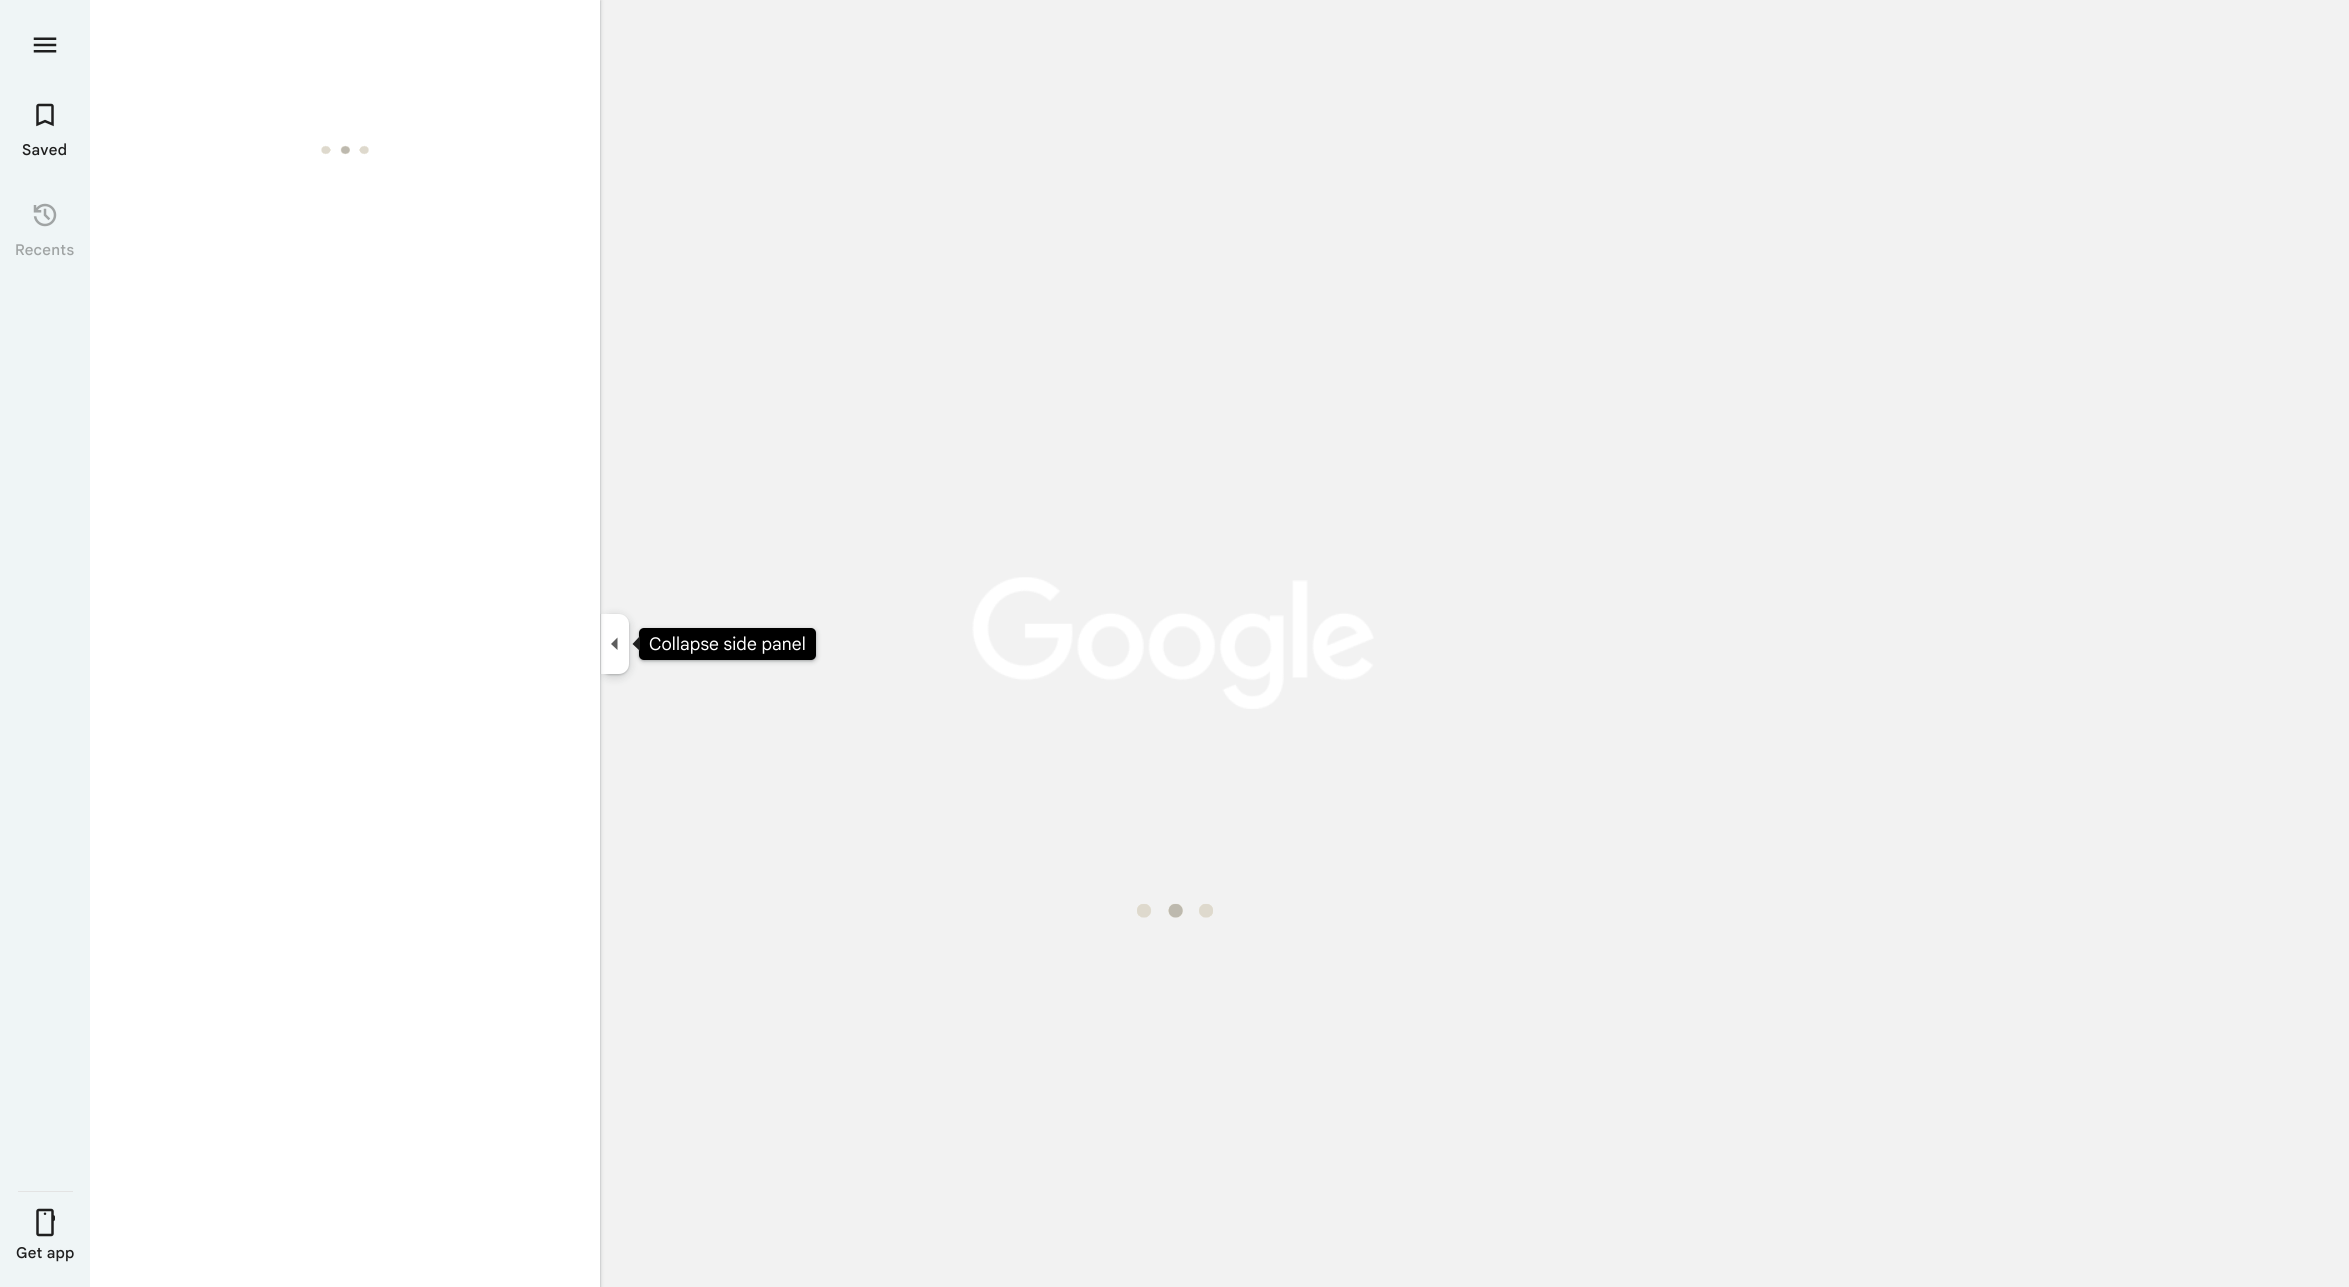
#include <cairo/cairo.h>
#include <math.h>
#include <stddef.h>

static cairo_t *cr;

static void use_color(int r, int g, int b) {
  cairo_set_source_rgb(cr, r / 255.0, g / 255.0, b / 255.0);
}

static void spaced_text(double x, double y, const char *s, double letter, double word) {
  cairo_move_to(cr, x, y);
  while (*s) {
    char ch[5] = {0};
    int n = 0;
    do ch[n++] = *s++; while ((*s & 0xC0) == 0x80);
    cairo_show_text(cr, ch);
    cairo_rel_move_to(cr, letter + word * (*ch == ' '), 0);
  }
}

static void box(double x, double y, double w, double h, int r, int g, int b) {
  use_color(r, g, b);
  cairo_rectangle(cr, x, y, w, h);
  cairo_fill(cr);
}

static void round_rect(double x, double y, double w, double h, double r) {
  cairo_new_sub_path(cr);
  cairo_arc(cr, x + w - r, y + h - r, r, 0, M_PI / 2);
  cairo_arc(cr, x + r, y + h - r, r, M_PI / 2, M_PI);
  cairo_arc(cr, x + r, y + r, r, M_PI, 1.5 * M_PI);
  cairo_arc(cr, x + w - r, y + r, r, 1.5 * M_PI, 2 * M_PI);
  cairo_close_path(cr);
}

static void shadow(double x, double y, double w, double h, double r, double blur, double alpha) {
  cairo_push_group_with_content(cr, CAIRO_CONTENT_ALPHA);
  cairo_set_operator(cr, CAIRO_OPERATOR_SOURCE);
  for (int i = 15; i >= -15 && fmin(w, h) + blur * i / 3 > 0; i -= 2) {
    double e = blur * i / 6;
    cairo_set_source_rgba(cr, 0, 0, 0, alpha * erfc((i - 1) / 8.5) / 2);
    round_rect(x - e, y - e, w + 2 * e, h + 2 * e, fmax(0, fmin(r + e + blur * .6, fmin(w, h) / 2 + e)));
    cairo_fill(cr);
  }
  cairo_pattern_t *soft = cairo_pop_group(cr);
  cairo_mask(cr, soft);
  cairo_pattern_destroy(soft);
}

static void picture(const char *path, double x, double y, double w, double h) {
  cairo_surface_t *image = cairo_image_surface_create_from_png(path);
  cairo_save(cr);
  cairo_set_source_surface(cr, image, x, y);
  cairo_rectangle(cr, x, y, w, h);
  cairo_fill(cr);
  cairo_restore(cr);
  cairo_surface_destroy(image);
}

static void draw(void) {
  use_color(242, 242, 242);
  cairo_paint(cr);
  use_color(60, 64, 67);
  shadow(598, 614, 33, 65, 13, 4, 0.15);
  shadow(600, 615, 29, 60, 10, 1, 0.3);
  use_color(255, 255, 255);
  cairo_new_path(cr);
  cairo_move_to(cr, 600, 614);
  cairo_line_to(cr, 619, 614);
  cairo_curve_to(cr, 624.5, 614, 629, 618.5, 629, 624);
  cairo_line_to(cr, 629, 664);
  cairo_curve_to(cr, 629, 669.5, 624.5, 674, 619, 674);
  cairo_line_to(cr, 600, 674);
  cairo_close_path(cr);
  cairo_fill(cr);
  box(600, 614, 1, 60, 227, 227, 227);
  use_color(60, 64, 67);
  shadow(89, 0, 512, 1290, 0, 2, 0.15);
  shadow(90, 1, 510, 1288, 0, 1, 0.3);
  box(0, 0, 90, 1287, 239, 245, 246);
  picture("img_01.png", 33, 37, 24, 16);
  picture("img_02.png", 36, 103, 18, 24);
  picture("img_03.png", 33, 203, 24, 24);
  box(18, 1191, 55, 1, 227, 227, 227);
  picture("img_04.png", 36, 1208, 19, 29);
  box(90, 0, 510, 1287, 255, 255, 255);
  picture("img_05.png", 321, 145, 48, 10);
  use_color(94, 94, 94);
  cairo_new_path(cr);
  cairo_move_to(cr, 617.5, 650);
  cairo_line_to(cr, 611, 644);
  cairo_line_to(cr, 617.5, 637.5);
  cairo_close_path(cr);
  cairo_fill(cr);
  use_color(60, 64, 67);
  shadow(638, 628, 180, 35, 6, 2, 0.15);
  shadow(639, 629, 177, 32, 5, 1, 0.3);
  use_color(0, 0, 0);
  round_rect(639, 628, 177, 32, 5);
  cairo_fill(cr);
  use_color(31, 31, 31);
  cairo_new_path(cr);
  cairo_move_to(cr, 640, 636);
  cairo_line_to(cr, 640, 651);
  cairo_line_to(cr, 632.5, 644);
  cairo_close_path(cr);
  cairo_fill(cr);
  picture("img_06.png", 972, 577, 402, 132);
  picture("img_07.png", 1137, 903, 76, 15);
  cairo_select_font_face(cr, "Google Sans Medium", CAIRO_FONT_SLANT_NORMAL, CAIRO_FONT_WEIGHT_NORMAL);
  cairo_set_font_size(cr, 15);
  spaced_text(22, 155, "Saved", 0.25, 0);
  use_color(160, 164, 164);
  spaced_text(15, 255, "Recents", 0.25, 0);
  use_color(31, 31, 31);
  spaced_text(16, 1258, "Get app", 0.25, 0);
  cairo_select_font_face(cr, "Google Sans", CAIRO_FONT_SLANT_NORMAL, CAIRO_FONT_WEIGHT_NORMAL);
  cairo_set_font_size(cr, 17.5);
  use_color(255, 255, 255);
  spaced_text(649, 650, "Collapse side panel", 0.1, 0);
}

int main(void) {
  cairo_surface_t *surface = cairo_image_surface_create(CAIRO_FORMAT_RGB24, 2349, 1287);
  cr = cairo_create(surface);
  cairo_font_options_t *options = cairo_font_options_create();
  cairo_font_options_set_hint_metrics(options, CAIRO_HINT_METRICS_OFF);
  cairo_font_options_set_hint_style(options, CAIRO_HINT_STYLE_NONE);
  cairo_set_font_options(cr, options);
  cairo_set_miter_limit(cr, 4);
  draw();
  cairo_surface_write_to_png(surface, "out.png");
  cairo_font_options_destroy(options);
  cairo_destroy(cr);
  cairo_surface_destroy(surface);
  return 0;
}
